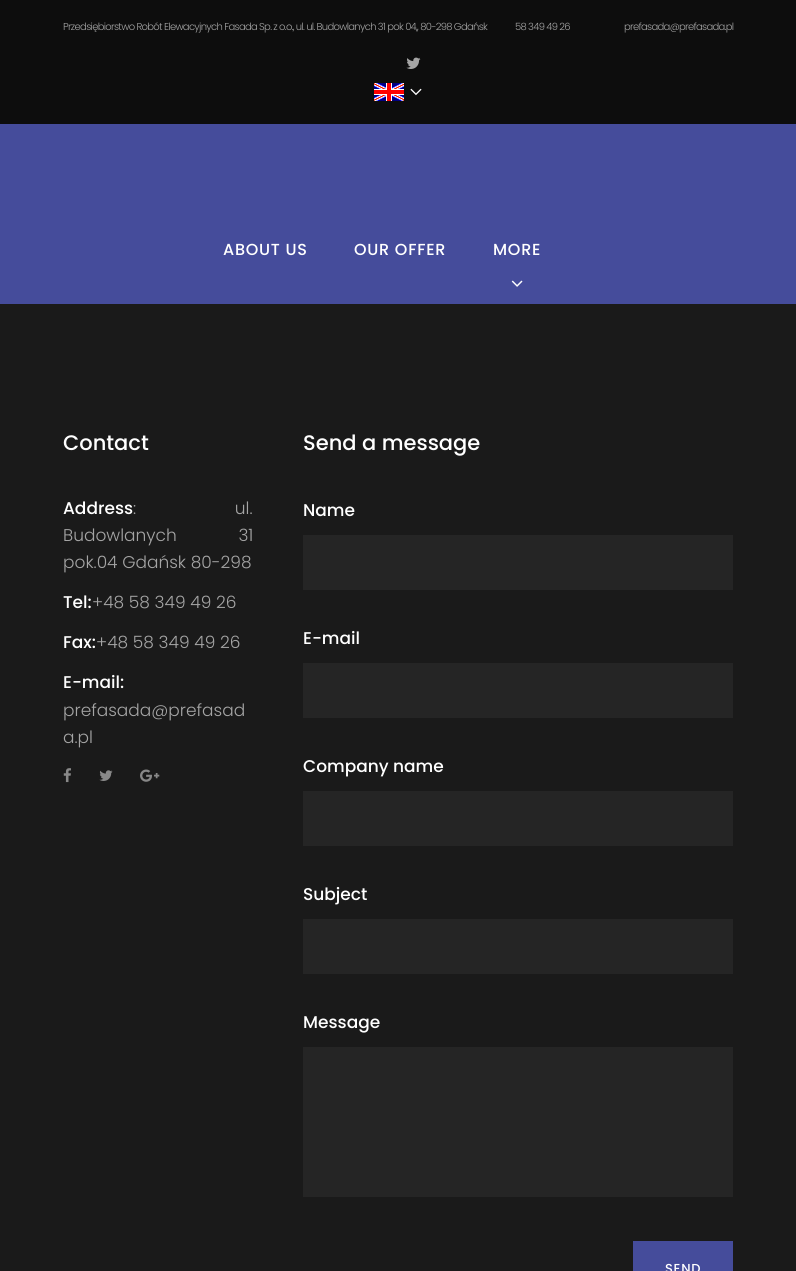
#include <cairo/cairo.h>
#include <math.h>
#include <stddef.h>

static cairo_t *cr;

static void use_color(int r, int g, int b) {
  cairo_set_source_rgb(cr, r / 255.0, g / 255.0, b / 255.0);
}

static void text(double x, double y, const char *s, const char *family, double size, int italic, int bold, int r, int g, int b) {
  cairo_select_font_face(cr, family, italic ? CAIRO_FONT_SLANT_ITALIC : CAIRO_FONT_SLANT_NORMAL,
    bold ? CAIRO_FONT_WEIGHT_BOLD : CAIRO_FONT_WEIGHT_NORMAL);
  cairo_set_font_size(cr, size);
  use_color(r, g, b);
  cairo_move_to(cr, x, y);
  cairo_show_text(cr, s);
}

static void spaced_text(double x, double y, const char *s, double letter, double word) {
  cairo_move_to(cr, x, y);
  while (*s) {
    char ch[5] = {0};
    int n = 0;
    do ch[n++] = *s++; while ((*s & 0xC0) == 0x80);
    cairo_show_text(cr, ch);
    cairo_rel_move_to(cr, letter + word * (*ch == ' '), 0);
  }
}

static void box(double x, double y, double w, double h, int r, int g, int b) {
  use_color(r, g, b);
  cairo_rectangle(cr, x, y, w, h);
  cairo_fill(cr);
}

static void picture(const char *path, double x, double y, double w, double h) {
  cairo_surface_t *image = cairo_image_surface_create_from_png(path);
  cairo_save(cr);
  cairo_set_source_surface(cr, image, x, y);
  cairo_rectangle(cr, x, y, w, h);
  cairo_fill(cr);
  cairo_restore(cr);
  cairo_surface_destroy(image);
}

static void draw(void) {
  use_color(26, 26, 26);
  cairo_paint(cr);
  box(0, 124, 796, 180, 69, 76, 155);
  box(0, 0, 796, 124, 13, 13, 13);
  picture("img_01.png", 406, 57, 15, 12);
  picture("img_02.png", 410, 88, 12, 8);
  picture("img_03.png", 374, 83, 30, 18);
  picture("img_04.png", 511, 280, 12, 7);
  picture("img_05.png", 63, 768, 8, 15);
  picture("img_06.png", 99, 770, 14, 11);
  picture("img_07.png", 140, 769, 20, 13);
  box(303, 535, 430, 55, 37, 37, 37);
  box(303, 663, 430, 55, 37, 37, 37);
  box(303, 791, 430, 55, 37, 37, 37);
  box(303, 919, 430, 55, 37, 37, 37);
  box(303, 1047, 430, 150, 37, 37, 37);
  box(633, 1241, 100, 30, 69, 76, 155);
  cairo_select_font_face(cr, "Poppins Light", CAIRO_FONT_SLANT_NORMAL, CAIRO_FONT_WEIGHT_NORMAL);
  cairo_set_font_size(cr, 10);
  use_color(165, 165, 165);
  spaced_text(63, 30, "Przedsiębiorstwo Robót Elewacyjnych Fasada Sp. z o.o., ul. ul. Budowlanych 31 pok 04,, 80-298 Gdańsk", -0.7, 0);
  spaced_text(515, 30, "58 349 49 26", -0.7, 0);
  spaced_text(624, 30, "prefasada@prefasada.pl", -0.7, 0);
  cairo_select_font_face(cr, "Poppins Medium", CAIRO_FONT_SLANT_NORMAL, CAIRO_FONT_WEIGHT_NORMAL);
  cairo_set_font_size(cr, 16);
  use_color(255, 255, 255);
  spaced_text(223, 255, "ABOUT US", 0.75, 0);
  spaced_text(354, 255, "OUR OFFER", 0.75, 0);
  spaced_text(493, 255, "MORE", 0.75, 0);
  text(63, 450, "Contact", "Poppins Medium", 21, 0, 0, 255, 255, 255);
  text(63, 514, "Address", "Poppins Medium", 17, 0, 0, 255, 255, 255);
  cairo_select_font_face(cr, "Poppins Light", CAIRO_FONT_SLANT_NORMAL, CAIRO_FONT_WEIGHT_NORMAL);
  use_color(165, 165, 165);
  spaced_text(133, 514, ": ul.", 0, 94);
  spaced_text(63, 541, "Budowlanych 31", 0, 57);
  text(63, 568, "pok.04 Gdańsk 80-298", "Poppins Light", 17, 0, 0, 165, 165, 165);
  text(63, 608, "Tel:", "Poppins Medium", 17, 0, 0, 255, 255, 255);
  text(92, 608, "+48 58 349 49 26", "Poppins Light", 17, 0, 0, 165, 165, 165);
  text(63, 648, "Fax:", "Poppins Medium", 17, 0, 0, 255, 255, 255);
  text(96, 648, "+48 58 349 49 26", "Poppins Light", 17, 0, 0, 165, 165, 165);
  text(63, 688, "E-mail:", "Poppins Medium", 17, 0, 0, 255, 255, 255);
  text(63, 716, "prefasada@prefasad", "Poppins Light", 17, 0, 0, 165, 165, 165);
  text(63, 743, "a.pl", "Poppins Light", 17, 0, 0, 165, 165, 165);
  text(303, 450, "Send a message", "Poppins Medium", 21, 0, 0, 255, 255, 255);
  text(303, 516, "Name", "Poppins Medium", 17, 0, 0, 255, 255, 255);
  text(303, 644, "E-mail", "Poppins Medium", 17, 0, 0, 255, 255, 255);
  text(303, 772, "Company name", "Poppins Medium", 17, 0, 0, 255, 255, 255);
  text(303, 900, "Subject", "Poppins Medium", 17, 0, 0, 255, 255, 255);
  text(303, 1028, "Message", "Poppins Medium", 17, 0, 0, 255, 255, 255);
  cairo_set_font_size(cr, 13);
  spaced_text(665, 1273, "SEND", 0.75, 0);
}

int main(void) {
  cairo_surface_t *surface = cairo_image_surface_create(CAIRO_FORMAT_RGB24, 796, 1271);
  cr = cairo_create(surface);
  cairo_font_options_t *options = cairo_font_options_create();
  cairo_font_options_set_hint_metrics(options, CAIRO_HINT_METRICS_OFF);
  cairo_font_options_set_hint_style(options, CAIRO_HINT_STYLE_NONE);
  cairo_set_font_options(cr, options);
  cairo_set_miter_limit(cr, 4);
  draw();
  cairo_surface_write_to_png(surface, "out.png");
  cairo_font_options_destroy(options);
  cairo_destroy(cr);
  cairo_surface_destroy(surface);
  return 0;
}
